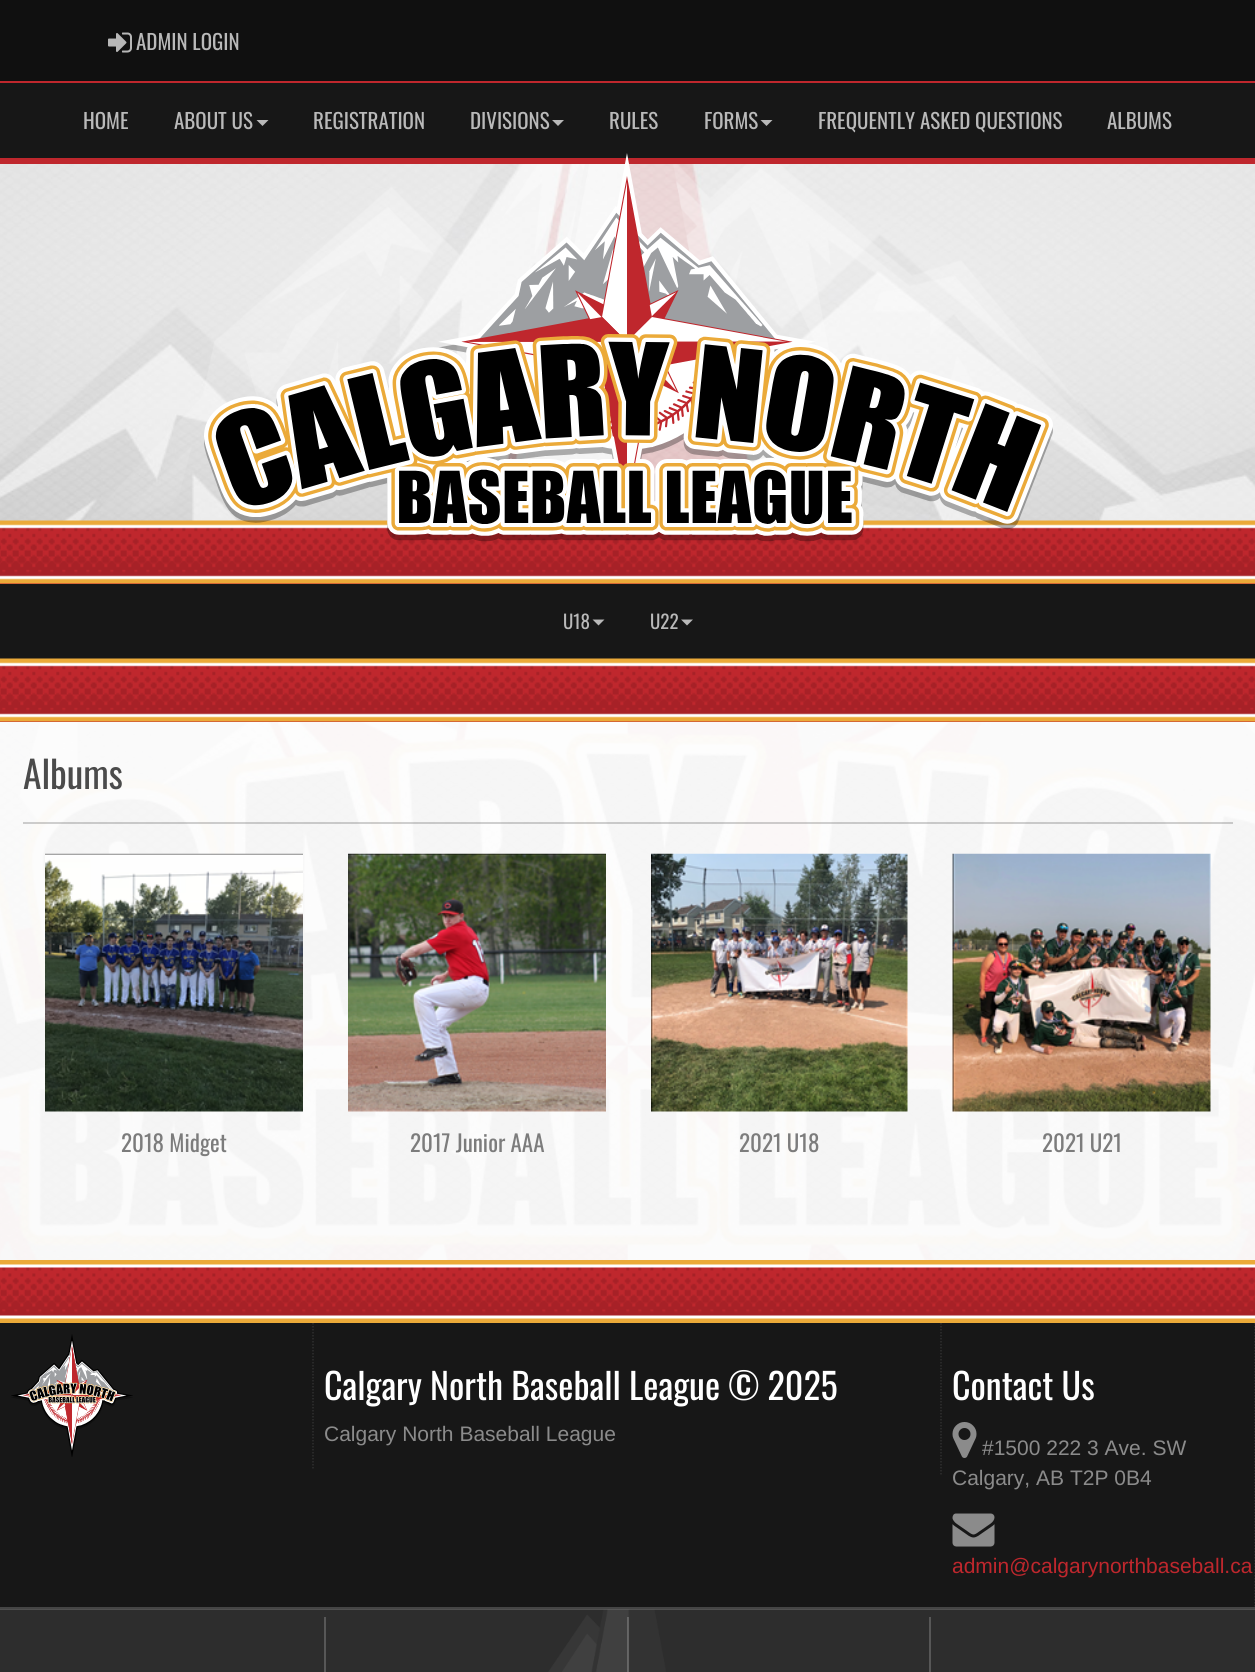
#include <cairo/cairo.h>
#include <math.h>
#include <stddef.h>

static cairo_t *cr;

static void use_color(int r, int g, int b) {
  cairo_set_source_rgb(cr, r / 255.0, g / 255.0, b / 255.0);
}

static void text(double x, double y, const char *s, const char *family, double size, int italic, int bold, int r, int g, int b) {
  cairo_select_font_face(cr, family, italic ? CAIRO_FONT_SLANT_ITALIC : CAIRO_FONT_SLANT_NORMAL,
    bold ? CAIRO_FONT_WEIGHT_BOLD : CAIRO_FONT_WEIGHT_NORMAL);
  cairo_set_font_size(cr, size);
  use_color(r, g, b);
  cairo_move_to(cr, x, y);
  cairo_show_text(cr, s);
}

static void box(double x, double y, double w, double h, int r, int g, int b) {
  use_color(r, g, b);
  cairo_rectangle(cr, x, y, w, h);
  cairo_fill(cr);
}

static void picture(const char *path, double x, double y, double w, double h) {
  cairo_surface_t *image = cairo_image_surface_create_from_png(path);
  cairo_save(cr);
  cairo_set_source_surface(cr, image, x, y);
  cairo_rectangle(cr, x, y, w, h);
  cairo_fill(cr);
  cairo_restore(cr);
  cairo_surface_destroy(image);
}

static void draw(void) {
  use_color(255, 255, 255);
  cairo_paint(cr);
  box(0, 81, 1255, 2, 191, 39, 45);
  box(0, 0, 1255, 81, 16, 16, 16);
  picture("img_01.png", 108, 32, 24, 21);
  box(0, 83, 1255, 75, 23, 23, 23);
  box(0, 158, 1255, 6, 191, 39, 45);
  use_color(185, 185, 185);
  cairo_new_path(cr);
  cairo_move_to(cr, 256.5, 120);
  cairo_line_to(cr, 268.5, 120);
  cairo_line_to(cr, 262.5, 126);
  cairo_close_path(cr);
  cairo_fill(cr);
  cairo_new_path(cr);
  cairo_move_to(cr, 552, 120);
  cairo_line_to(cr, 564, 120);
  cairo_line_to(cr, 558, 126);
  cairo_close_path(cr);
  cairo_fill(cr);
  cairo_new_path(cr);
  cairo_move_to(cr, 760.5, 120);
  cairo_line_to(cr, 772.5, 120);
  cairo_line_to(cr, 766.5, 126);
  cairo_close_path(cr);
  cairo_fill(cr);
  picture("img_03.png", 0, 164, 1255, 1096);
  picture("img_04.png", 0, 164, 1255, 357);
  box(0, 527, 1255, 57, 191, 39, 45);
  picture("img_05.png", 0, 520, 1255, 64);
  picture("img_02.png", 204, 153, 849, 389);
  box(0, 584, 1255, 75, 23, 23, 23);
  use_color(185, 185, 185);
  cairo_new_path(cr);
  cairo_move_to(cr, 592.5, 619.5);
  cairo_line_to(cr, 604.5, 619.5);
  cairo_line_to(cr, 598.5, 625.5);
  cairo_close_path(cr);
  cairo_fill(cr);
  cairo_new_path(cr);
  cairo_move_to(cr, 681, 619.5);
  cairo_line_to(cr, 693, 619.5);
  cairo_line_to(cr, 687, 625.5);
  cairo_close_path(cr);
  cairo_fill(cr);
  box(0, 665, 1255, 57, 191, 39, 45);
  picture("img_06.png", 0, 658, 1255, 64);
  cairo_set_source_rgba(cr, 1, 1, 1, 0.9);
  cairo_rectangle(cr, 0, 722, 1255, 538);
  cairo_fill(cr);
  cairo_set_source_rgba(cr, 0.09, 0.09, 0.09, 0.2);
  cairo_rectangle(cr, 23, 822, 1210, 2);
  cairo_fill(cr);
  picture("img_07.png", 45, 853, 258, 259);
  picture("img_08.png", 348, 853, 258, 259);
  picture("img_09.png", 651, 853, 257, 259);
  picture("img_10.png", 952, 853, 259, 259);
  box(0, 1267, 1255, 49, 191, 39, 45);
  picture("img_11.png", 0, 1260, 1255, 63);
  box(0, 1323, 1255, 284, 23, 23, 23);
  cairo_new_path(cr);
  cairo_move_to(cr, 313, 1323);
  cairo_line_to(cr, 313, 1470);
  use_color(46, 46, 46);
  cairo_set_line_width(cr, 1.5);
  cairo_set_dash(cr, (double[]){1.5, 1.5}, 2, 0);
  cairo_stroke(cr);
  picture("img_12.png", 11, 1334, 122, 123);
  cairo_new_path(cr);
  cairo_move_to(cr, 941, 1323);
  cairo_line_to(cr, 941, 1474.5);
  cairo_stroke(cr);
  cairo_new_path(cr);
  cairo_move_to(cr, 1255, 1323);
  cairo_line_to(cr, 1255, 1606.5);
  cairo_stroke(cr);
  picture("img_13.png", 952, 1422, 25, 36);
  picture("img_14.png", 952, 1513, 43, 34);
  box(0, 1607, 1255, 3, 69, 69, 69);
  box(0, 1610, 1255, 62, 16, 16, 16);
  picture("img_15.png", 0, 1609, 1255, 63);
  box(324, 1617, 2, 55, 87, 87, 87);
  cairo_set_source_rgba(cr, 1, 1, 1, 0.2);
  cairo_rectangle(cr, 627, 1617, 2, 55);
  cairo_fill(cr);
  box(929, 1617, 2, 55, 87, 87, 87);
  text(136, 50, "ADMIN LOGIN", "Oswald", 21, 0, 0, 185, 185, 185);
  text(83, 129, "HOME", "Oswald", 21, 0, 0, 185, 185, 185);
  text(174, 129, "ABOUT US", "Oswald", 21, 0, 0, 185, 185, 185);
  text(313, 129, "REGISTRATION", "Oswald", 21, 0, 0, 185, 185, 185);
  text(470, 129, "DIVISIONS", "Oswald", 21, 0, 0, 185, 185, 185);
  text(609, 129, "RULES", "Oswald", 21, 0, 0, 185, 185, 185);
  text(704, 129, "FORMS", "Oswald", 21, 0, 0, 185, 185, 185);
  text(818, 129, "FREQUENTLY ASKED QUESTIONS", "Oswald", 21, 0, 0, 185, 185, 185);
  text(1107, 129, "ALBUMS", "Oswald", 21, 0, 0, 185, 185, 185);
  text(563, 629, "U18", "Oswald", 19, 0, 0, 185, 185, 185);
  text(650, 629, "U22", "Oswald", 19, 0, 0, 185, 185, 185);
  text(23, 789, "Albums", "Oswald", 37.5, 0, 0, 75, 75, 75);
  text(121, 1152, "2018 Midget", "Oswald", 23, 0, 0, 124, 124, 124);
  text(410, 1152, "2017 Junior AAA", "Oswald", 23, 0, 0, 124, 124, 124);
  text(739, 1152, "2021 U18", "Oswald", 23, 0, 0, 124, 124, 124);
  text(1042, 1152, "2021 U21", "Oswald", 23, 0, 0, 124, 124, 124);
  text(324, 1400, "Calgary North Baseball League © 2025", "Oswald", 36, 0, 0, 255, 255, 255);
  text(324, 1441, "Calgary North Baseball League", "Liberation Sans", 21, 0, 0, 139, 139, 139);
  text(952, 1400, "Contact Us", "Oswald", 36, 0, 0, 255, 255, 255);
  text(982, 1455, "#1500 222 3 Ave. SW", "Liberation Sans", 21, 0, 0, 139, 139, 139);
  text(952, 1485, "Calgary, AB T2P 0B4", "Liberation Sans", 21, 0, 0, 139, 139, 139);
  text(952, 1573, "admin@calgarynorthbaseball.ca", "Liberation Sans", 21, 0, 0, 191, 39, 45);
}

int main(void) {
  cairo_surface_t *surface = cairo_image_surface_create(CAIRO_FORMAT_RGB24, 1255, 1672);
  cr = cairo_create(surface);
  cairo_font_options_t *options = cairo_font_options_create();
  cairo_font_options_set_hint_metrics(options, CAIRO_HINT_METRICS_OFF);
  cairo_font_options_set_hint_style(options, CAIRO_HINT_STYLE_NONE);
  cairo_set_font_options(cr, options);
  cairo_set_miter_limit(cr, 4);
  draw();
  cairo_surface_write_to_png(surface, "out.png");
  cairo_font_options_destroy(options);
  cairo_destroy(cr);
  cairo_surface_destroy(surface);
  return 0;
}
